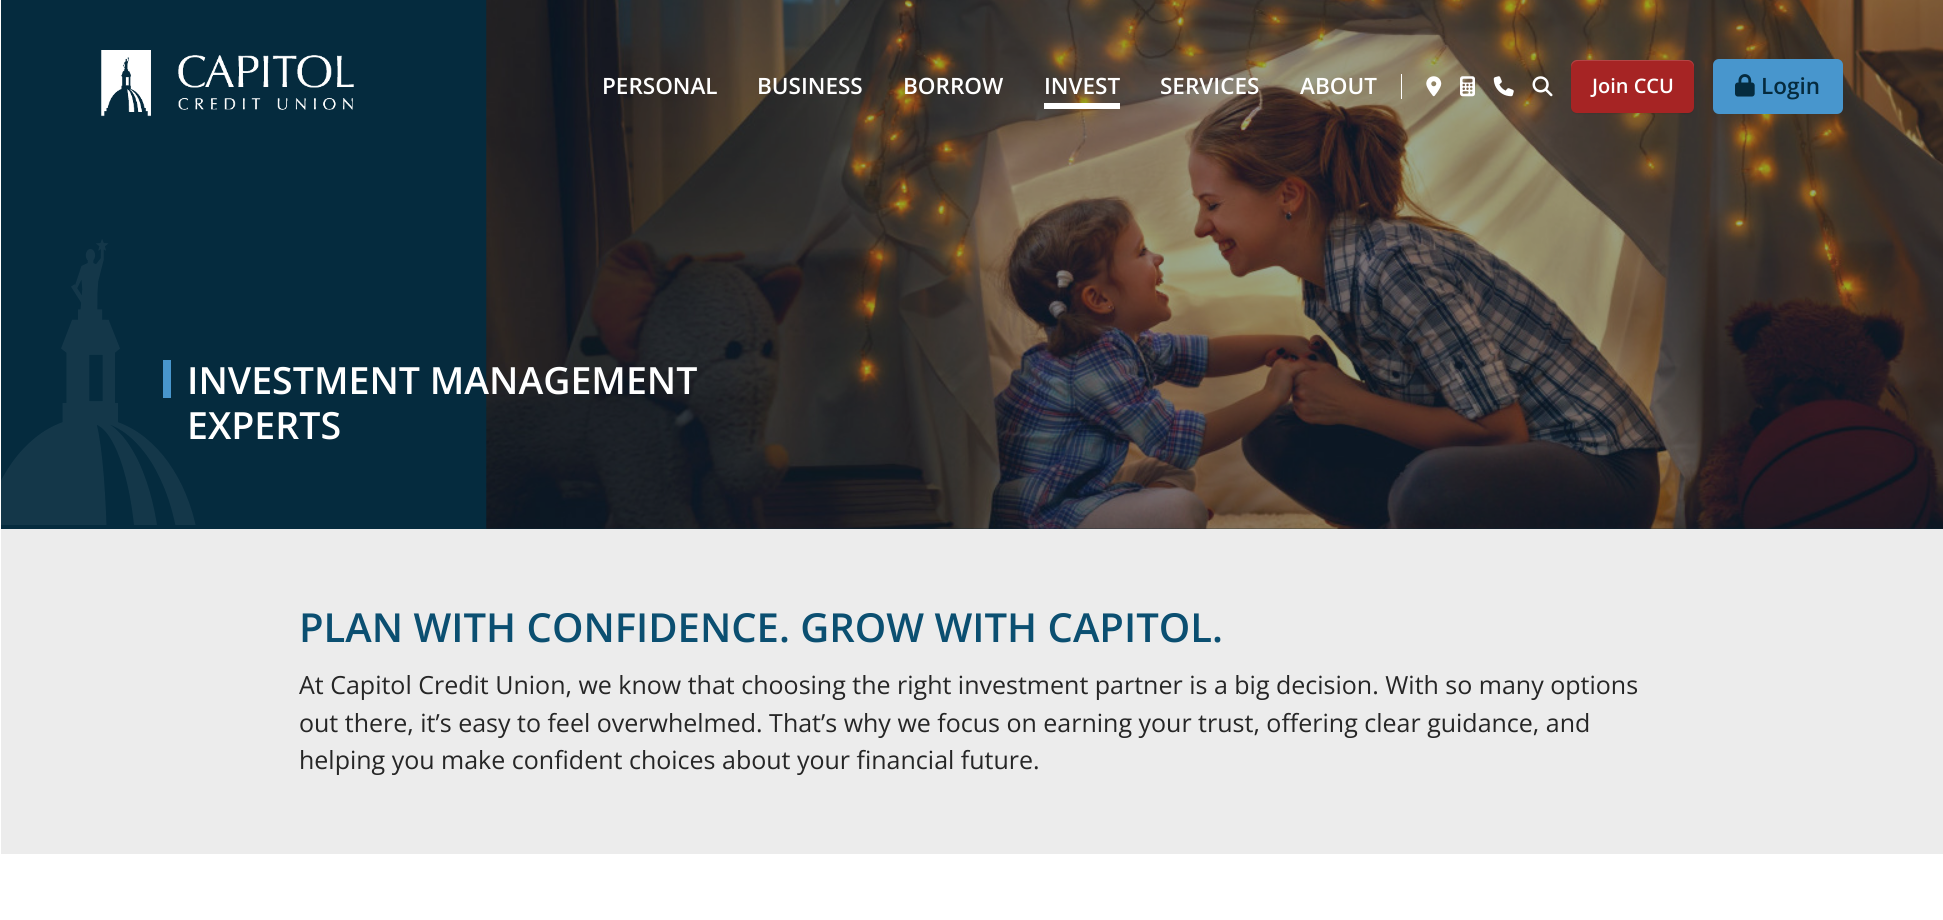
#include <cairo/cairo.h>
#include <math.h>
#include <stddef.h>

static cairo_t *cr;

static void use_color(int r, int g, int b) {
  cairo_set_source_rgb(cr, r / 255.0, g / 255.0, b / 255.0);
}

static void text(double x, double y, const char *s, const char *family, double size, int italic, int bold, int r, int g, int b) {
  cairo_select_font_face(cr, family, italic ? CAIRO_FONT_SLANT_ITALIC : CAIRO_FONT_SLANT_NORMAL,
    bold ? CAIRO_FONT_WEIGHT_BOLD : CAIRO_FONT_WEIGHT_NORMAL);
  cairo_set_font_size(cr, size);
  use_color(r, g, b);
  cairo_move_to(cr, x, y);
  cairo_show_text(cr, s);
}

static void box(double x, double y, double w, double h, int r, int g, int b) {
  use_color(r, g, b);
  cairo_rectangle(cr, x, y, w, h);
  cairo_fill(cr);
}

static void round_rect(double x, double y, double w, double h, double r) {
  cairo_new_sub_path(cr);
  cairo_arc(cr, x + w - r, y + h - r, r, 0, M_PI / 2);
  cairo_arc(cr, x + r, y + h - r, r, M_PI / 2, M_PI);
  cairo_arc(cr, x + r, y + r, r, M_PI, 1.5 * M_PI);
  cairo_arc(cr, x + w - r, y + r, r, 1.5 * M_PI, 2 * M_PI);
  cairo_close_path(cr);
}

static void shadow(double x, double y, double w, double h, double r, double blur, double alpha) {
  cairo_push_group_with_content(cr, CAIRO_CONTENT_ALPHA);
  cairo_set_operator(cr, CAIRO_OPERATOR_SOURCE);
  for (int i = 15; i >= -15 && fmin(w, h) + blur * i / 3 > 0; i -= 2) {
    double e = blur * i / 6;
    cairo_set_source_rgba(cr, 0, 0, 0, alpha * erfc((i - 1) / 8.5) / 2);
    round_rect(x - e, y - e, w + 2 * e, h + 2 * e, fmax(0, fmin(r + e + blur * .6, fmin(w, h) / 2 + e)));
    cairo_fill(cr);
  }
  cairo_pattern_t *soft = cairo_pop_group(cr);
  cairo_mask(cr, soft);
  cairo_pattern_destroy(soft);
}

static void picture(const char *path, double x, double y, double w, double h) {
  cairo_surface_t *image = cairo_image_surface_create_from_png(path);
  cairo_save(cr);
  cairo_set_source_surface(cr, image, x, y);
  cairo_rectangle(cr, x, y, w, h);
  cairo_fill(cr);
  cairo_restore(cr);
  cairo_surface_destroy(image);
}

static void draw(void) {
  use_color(255, 255, 255);
  cairo_paint(cr);
  box(1, 0, 1942, 529, 5, 43, 62);
  picture("img_01.png", 101, 50, 253, 67);
  picture("img_08.png", 486, 0, 1457, 529);
  box(1044, 103, 76, 6, 255, 255, 255);
  box(1401, 74, 1, 25, 255, 255, 255);
  picture("img_02.png", 1426, 76, 16, 21);
  picture("img_03.png", 1460, 76, 15, 21);
  picture("img_04.png", 1493, 76, 21, 21);
  picture("img_05.png", 1532, 76, 21, 21);
  use_color(0, 0, 0);
  shadow(1571, 61, 123, 53, 6, 0.5, 0.07);
  use_color(166, 36, 36);
  round_rect(1571, 60, 123, 53, 6);
  cairo_fill(cr);
  cairo_set_source_rgba(cr, 1, 1, 1, 0.15);
  cairo_new_path(cr);
  cairo_move_to(cr, 1578, 61);
  cairo_line_to(cr, 1688, 61);
  cairo_curve_to(cr, 1691, 61, 1694, 64, 1694, 68);
  cairo_line_to(cr, 1694, 66);
  cairo_curve_to(cr, 1694, 63, 1691, 60, 1688, 60);
  cairo_line_to(cr, 1577, 60);
  cairo_curve_to(cr, 1574, 60, 1571, 63, 1571, 66);
  cairo_line_to(cr, 1571, 68);
  cairo_curve_to(cr, 1571, 64, 1574, 61, 1578, 61);
  cairo_close_path(cr);
  cairo_fill(cr);
  use_color(72, 150, 205);
  round_rect(1713, 59, 130, 55, 6);
  cairo_fill(cr);
  picture("img_06.png", 1735, 74, 20, 23);
  picture("img_07.png", 1, 239, 195, 286);
  box(163, 360, 8, 38, 72, 150, 205);
  box(1, 529, 1942, 325, 236, 236, 236);
  text(602, 94, "PERSONAL", "Open Sans SemiBold", 22.5, 0, 0, 255, 255, 255);
  text(757, 94, "BUSINESS", "Open Sans SemiBold", 22.5, 0, 0, 255, 255, 255);
  text(903, 94, "BORROW", "Open Sans SemiBold", 22.5, 0, 0, 255, 255, 255);
  text(1044, 94, "INVEST", "Open Sans SemiBold", 22.5, 0, 0, 255, 255, 255);
  text(1160, 94, "SERVICES", "Open Sans SemiBold", 22.5, 0, 0, 255, 255, 255);
  text(1300, 94, "ABOUT", "Open Sans SemiBold", 22.5, 0, 0, 255, 255, 255);
  text(1592, 93, "Join CCU", "Open Sans SemiBold", 20, 0, 0, 255, 255, 255);
  text(1761, 94, "Login", "Open Sans SemiBold", 22.5, 0, 0, 5, 43, 62);
  text(187, 394, "INVESTMENT MANAGEMENT", "Open Sans SemiBold", 37.5, 0, 0, 255, 255, 255);
  text(187, 439, "EXPERTS", "Open Sans SemiBold", 37.5, 0, 0, 255, 255, 255);
  text(299, 642, "PLAN WITH CONFIDENCE. GROW WITH CAPITOL.", "Open Sans SemiBold", 40, 0, 0, 11, 79, 113);
  text(299, 694, "At Capitol Credit Union, we know that choosing the right investment partner is a big decision. With so many options", "Open Sans", 25, 0, 0, 38, 38, 38);
  text(299, 732, "out there, it’s easy to feel overwhelmed. That’s why we focus on earning your trust, offering clear guidance, and", "Open Sans", 25, 0, 0, 38, 38, 38);
  text(299, 769, "helping you make confident choices about your financial future.", "Open Sans", 25, 0, 0, 38, 38, 38);
}

int main(void) {
  cairo_surface_t *surface = cairo_image_surface_create(CAIRO_FORMAT_RGB24, 1943, 920);
  cr = cairo_create(surface);
  cairo_font_options_t *options = cairo_font_options_create();
  cairo_font_options_set_hint_metrics(options, CAIRO_HINT_METRICS_OFF);
  cairo_font_options_set_hint_style(options, CAIRO_HINT_STYLE_NONE);
  cairo_set_font_options(cr, options);
  cairo_set_miter_limit(cr, 4);
  draw();
  cairo_surface_write_to_png(surface, "out.png");
  cairo_font_options_destroy(options);
  cairo_destroy(cr);
  cairo_surface_destroy(surface);
  return 0;
}
